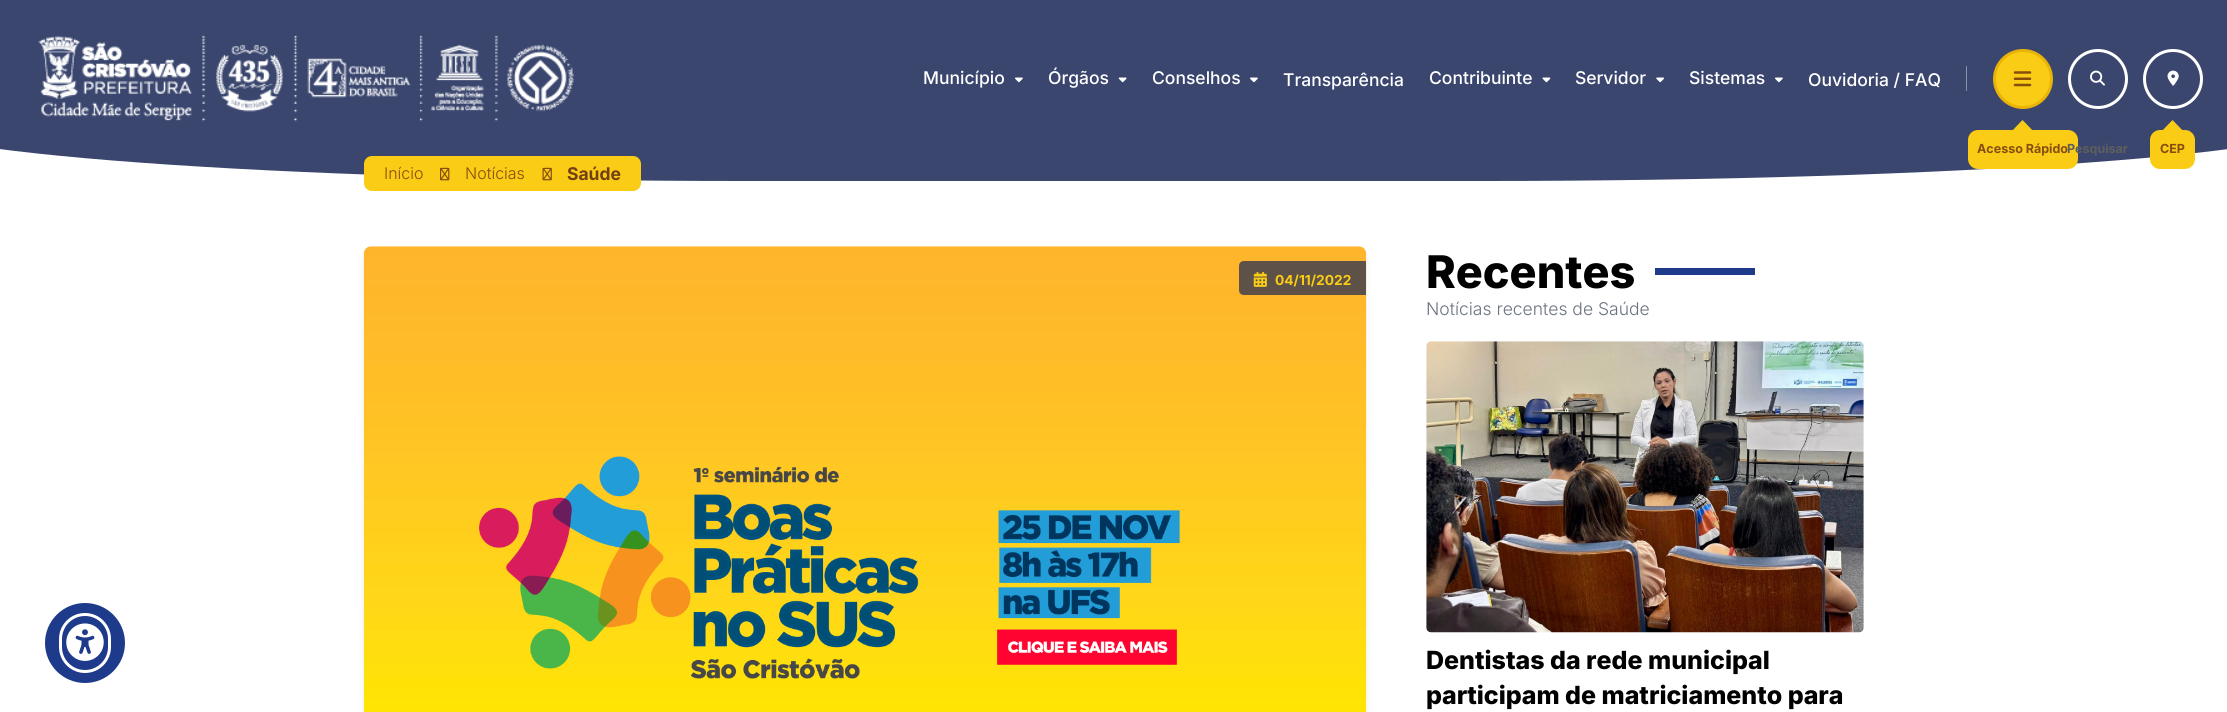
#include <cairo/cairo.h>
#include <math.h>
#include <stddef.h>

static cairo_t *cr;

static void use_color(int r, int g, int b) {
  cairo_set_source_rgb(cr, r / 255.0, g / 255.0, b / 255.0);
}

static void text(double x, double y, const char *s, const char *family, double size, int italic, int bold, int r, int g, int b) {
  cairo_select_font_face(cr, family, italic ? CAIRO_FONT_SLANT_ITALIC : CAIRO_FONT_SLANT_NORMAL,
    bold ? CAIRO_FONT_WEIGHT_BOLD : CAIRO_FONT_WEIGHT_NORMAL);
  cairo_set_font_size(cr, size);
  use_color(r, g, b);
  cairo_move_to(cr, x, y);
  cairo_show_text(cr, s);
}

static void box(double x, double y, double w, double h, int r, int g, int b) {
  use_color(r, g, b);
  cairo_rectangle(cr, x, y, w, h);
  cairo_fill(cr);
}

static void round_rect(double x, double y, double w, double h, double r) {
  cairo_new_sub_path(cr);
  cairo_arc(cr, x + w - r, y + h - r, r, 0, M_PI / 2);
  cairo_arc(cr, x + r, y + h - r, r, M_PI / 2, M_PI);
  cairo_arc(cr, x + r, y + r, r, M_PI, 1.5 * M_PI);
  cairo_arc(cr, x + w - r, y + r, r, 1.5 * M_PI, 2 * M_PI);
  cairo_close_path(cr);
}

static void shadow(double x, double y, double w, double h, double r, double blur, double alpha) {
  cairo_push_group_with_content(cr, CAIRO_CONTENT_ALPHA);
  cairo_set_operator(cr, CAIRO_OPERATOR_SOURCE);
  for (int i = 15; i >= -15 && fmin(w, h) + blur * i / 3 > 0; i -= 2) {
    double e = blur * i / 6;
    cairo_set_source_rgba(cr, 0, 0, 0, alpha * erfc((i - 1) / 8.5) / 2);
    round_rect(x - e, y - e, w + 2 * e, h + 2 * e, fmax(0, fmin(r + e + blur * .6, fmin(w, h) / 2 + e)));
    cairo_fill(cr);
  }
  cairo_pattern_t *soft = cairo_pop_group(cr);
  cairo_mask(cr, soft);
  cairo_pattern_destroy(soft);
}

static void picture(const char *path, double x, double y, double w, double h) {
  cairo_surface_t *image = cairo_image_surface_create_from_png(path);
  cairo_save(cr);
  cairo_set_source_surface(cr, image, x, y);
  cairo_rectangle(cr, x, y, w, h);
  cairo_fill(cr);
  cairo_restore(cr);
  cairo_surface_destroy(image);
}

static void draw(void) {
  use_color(255, 255, 255);
  cairo_paint(cr);
  use_color(58, 70, 110);
  cairo_new_path(cr);
  cairo_move_to(cr, -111, 0);
  cairo_line_to(cr, 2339, 0);
  cairo_line_to(cr, 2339, 118);
  cairo_curve_to(cr, 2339, 153, 1955, 181, 1481, 181);
  cairo_line_to(cr, 746, 181);
  cairo_curve_to(cr, 273, 181, -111, 153, -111, 118);
  cairo_close_path(cr);
  cairo_fill(cr);
  picture("img_01.png", 38, 35, 536, 87);
  picture("img_02.png", 1015, 77, 8, 6);
  picture("img_03.png", 1118, 77, 9, 6);
  picture("img_02.png", 1250, 77, 8, 6);
  picture("img_04.png", 1542, 77, 9, 6);
  picture("img_05.png", 1656, 77, 8, 6);
  picture("img_02.png", 1775, 77, 8, 6);
  box(1966, 66, 1, 25, 137, 144, 168);
  use_color(250, 204, 21);
  cairo_arc(cr, 2023, 79, 28.5, 0, 2 * M_PI);
  cairo_fill_preserve(cr);
  use_color(234, 179, 8);
  cairo_set_line_width(cr, 3);
  cairo_stroke(cr);
  picture("img_06.png", 2013, 71, 19, 16);
  use_color(250, 204, 21);
  cairo_new_path(cr);
  cairo_move_to(cr, 2022.5, 120);
  cairo_line_to(cr, 2036.5, 134.5);
  cairo_line_to(cr, 2022.5, 148.5);
  cairo_line_to(cr, 2008.5, 134.5);
  cairo_close_path(cr);
  cairo_fill(cr);
  round_rect(1968, 130, 110, 39, 10);
  cairo_fill(cr);
  cairo_arc(cr, 2098, 79, 28.5, 0, 2 * M_PI);
  use_color(255, 255, 255);
  cairo_stroke(cr);
  picture("img_07.png", 2090, 70, 15, 16);
  cairo_arc(cr, 2173, 79, 28.5, 0, 2 * M_PI);
  cairo_stroke(cr);
  picture("img_08.png", 2167, 70, 12, 16);
  use_color(250, 204, 21);
  cairo_new_path(cr);
  cairo_move_to(cr, 2172.5, 120);
  cairo_line_to(cr, 2186.5, 134.5);
  cairo_line_to(cr, 2172.5, 148.5);
  cairo_line_to(cr, 2158.5, 134.5);
  cairo_close_path(cr);
  cairo_fill(cr);
  round_rect(2150, 130, 45, 39, 10);
  cairo_fill(cr);
  use_color(30, 58, 138);
  cairo_arc(cr, 85, 643, 40, 0, 2 * M_PI);
  cairo_fill(cr);
  round_rect(60.5, 614.5, 49, 57, 24.5);
  use_color(255, 255, 255);
  cairo_stroke(cr);
  picture("img_09.png", 66, 623, 38, 38);
  use_color(250, 204, 21);
  round_rect(364, 156, 277, 35, 8);
  cairo_fill(cr);
  picture("img_10.png", 440, 167, 10, 14);
  picture("img_11.png", 542, 167, 10, 14);
  use_color(0, 0, 0);
  shadow(365, 253, 1000, 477, 6, 4, 0.1);
  picture("img_12.png", 363, 246, 1004, 466);
  use_color(93, 81, 72);
  cairo_new_path(cr);
  cairo_move_to(cr, 1244, 261);
  cairo_line_to(cr, 1366, 261);
  cairo_line_to(cr, 1366, 295);
  cairo_line_to(cr, 1244, 295);
  cairo_curve_to(cr, 1241, 295, 1239, 293, 1239, 290);
  cairo_line_to(cr, 1239, 266);
  cairo_curve_to(cr, 1239, 263, 1241, 261, 1244, 261);
  cairo_close_path(cr);
  cairo_fill(cr);
  picture("img_13.png", 1253, 271, 14, 16);
  box(1655, 268, 100, 7, 30, 58, 138);
  picture("img_14.png", 1426, 341, 438, 292);
  text(923, 84, "Município", "Inter Medium", 17.5, 0, 0, 255, 255, 255);
  text(1048, 84, "Órgãos", "Inter Medium", 17.5, 0, 0, 255, 255, 255);
  text(1152, 84, "Conselhos", "Inter Medium", 17.5, 0, 0, 255, 255, 255);
  text(1283, 86, "Transparência", "Inter Medium", 17.5, 0, 0, 255, 255, 255);
  text(1429, 84, "Contribuinte", "Inter Medium", 17.5, 0, 0, 255, 255, 255);
  text(1575, 84, "Servidor", "Inter Medium", 17.5, 0, 0, 255, 255, 255);
  text(1689, 84, "Sistemas", "Inter Medium", 17.5, 0, 0, 255, 255, 255);
  text(1808, 86, "Ouvidoria / FAQ", "Inter Medium", 17.5, 0, 0, 255, 255, 255);
  text(1977, 153, "Acesso Rápido", "Inter", 12.5, 0, 1, 133, 77, 14);
  text(2067, 153, "Pesquisar", "Inter", 12.5, 0, 1, 94, 95, 93);
  text(2160, 153, "CEP", "Inter", 12.5, 0, 1, 133, 77, 14);
  text(384, 179, "Início", "Inter Light", 16, 0, 0, 133, 77, 14);
  text(465, 179, "Notícias", "Inter Light", 16, 0, 0, 133, 77, 14);
  text(567, 180, "Saúde", "Inter", 17.5, 0, 1, 113, 63, 18);
  text(1275, 285, "04/11/2022", "Inter", 13.75, 0, 1, 250, 204, 21);
  text(1426, 288, "Recentes", "Inter ExtraBold", 45, 0, 0, 0, 0, 0);
  text(1426, 315, "Notícias recentes de Saúde", "Inter Light", 17.5, 0, 0, 107, 114, 128);
  text(1426, 669, "Dentistas da rede municipal", "Inter ExtraBold", 25, 0, 0, 0, 0, 0);
  text(1426, 704, "participam de matriciamento para", "Inter ExtraBold", 25, 0, 0, 0, 0, 0);
}

int main(void) {
  cairo_surface_t *surface = cairo_image_surface_create(CAIRO_FORMAT_RGB24, 2227, 712);
  cr = cairo_create(surface);
  cairo_font_options_t *options = cairo_font_options_create();
  cairo_font_options_set_hint_metrics(options, CAIRO_HINT_METRICS_OFF);
  cairo_font_options_set_hint_style(options, CAIRO_HINT_STYLE_NONE);
  cairo_set_font_options(cr, options);
  cairo_set_miter_limit(cr, 4);
  draw();
  cairo_surface_write_to_png(surface, "out.png");
  cairo_font_options_destroy(options);
  cairo_destroy(cr);
  cairo_surface_destroy(surface);
  return 0;
}
